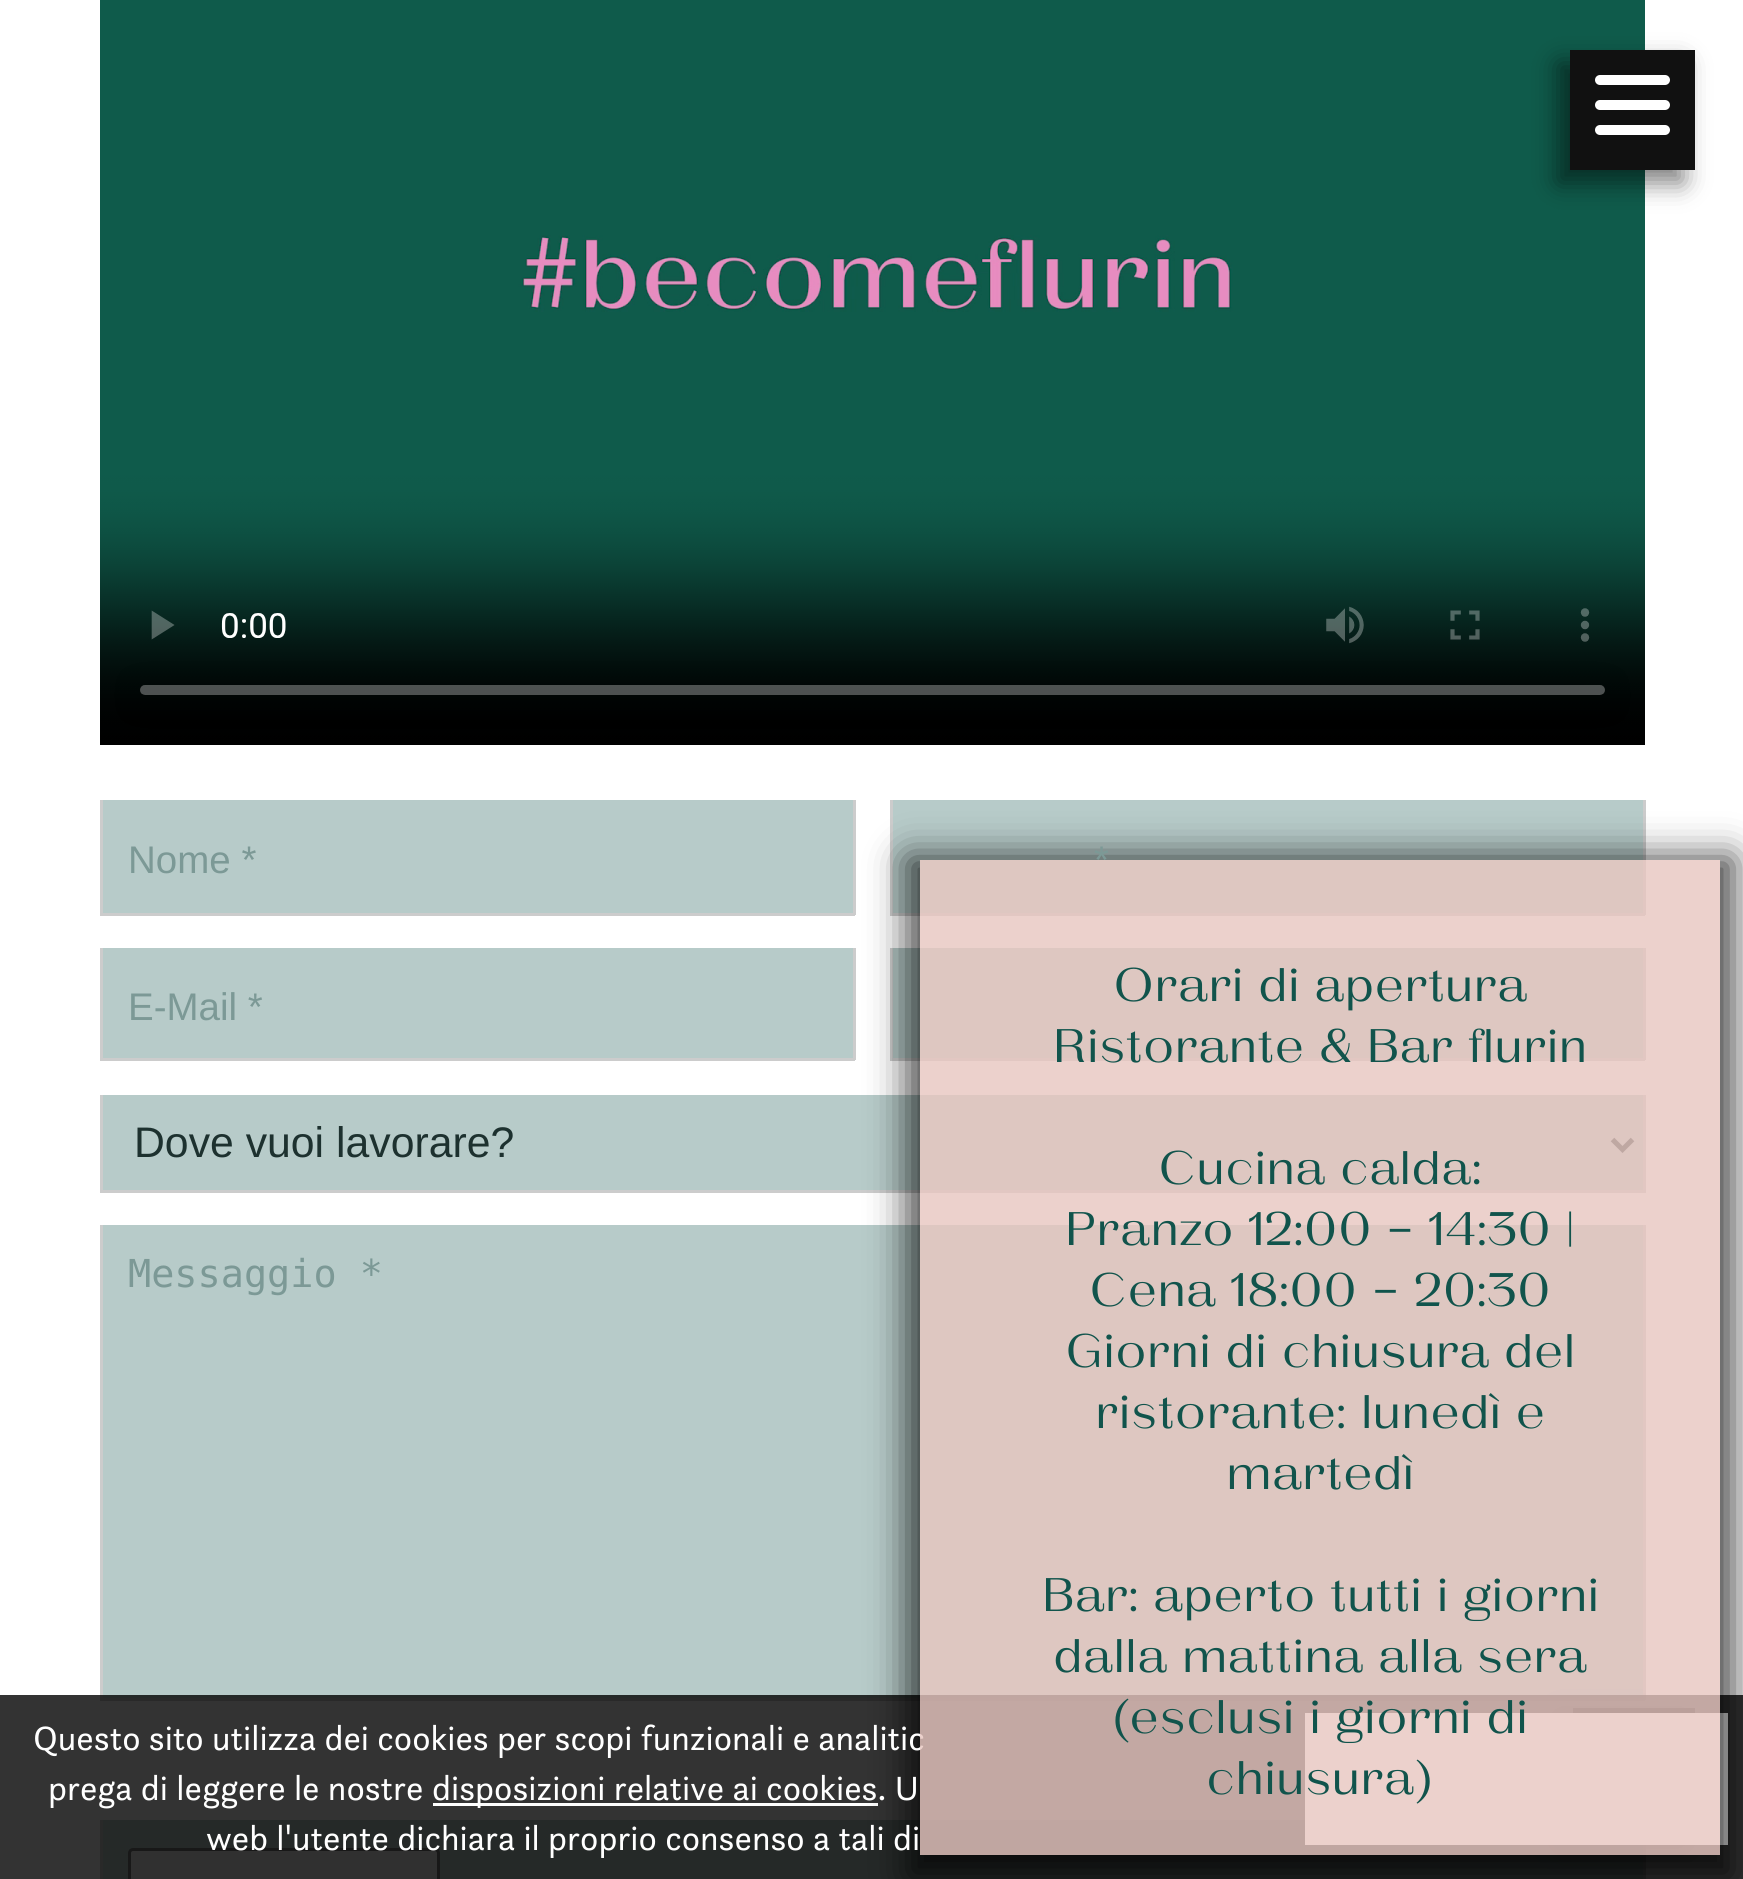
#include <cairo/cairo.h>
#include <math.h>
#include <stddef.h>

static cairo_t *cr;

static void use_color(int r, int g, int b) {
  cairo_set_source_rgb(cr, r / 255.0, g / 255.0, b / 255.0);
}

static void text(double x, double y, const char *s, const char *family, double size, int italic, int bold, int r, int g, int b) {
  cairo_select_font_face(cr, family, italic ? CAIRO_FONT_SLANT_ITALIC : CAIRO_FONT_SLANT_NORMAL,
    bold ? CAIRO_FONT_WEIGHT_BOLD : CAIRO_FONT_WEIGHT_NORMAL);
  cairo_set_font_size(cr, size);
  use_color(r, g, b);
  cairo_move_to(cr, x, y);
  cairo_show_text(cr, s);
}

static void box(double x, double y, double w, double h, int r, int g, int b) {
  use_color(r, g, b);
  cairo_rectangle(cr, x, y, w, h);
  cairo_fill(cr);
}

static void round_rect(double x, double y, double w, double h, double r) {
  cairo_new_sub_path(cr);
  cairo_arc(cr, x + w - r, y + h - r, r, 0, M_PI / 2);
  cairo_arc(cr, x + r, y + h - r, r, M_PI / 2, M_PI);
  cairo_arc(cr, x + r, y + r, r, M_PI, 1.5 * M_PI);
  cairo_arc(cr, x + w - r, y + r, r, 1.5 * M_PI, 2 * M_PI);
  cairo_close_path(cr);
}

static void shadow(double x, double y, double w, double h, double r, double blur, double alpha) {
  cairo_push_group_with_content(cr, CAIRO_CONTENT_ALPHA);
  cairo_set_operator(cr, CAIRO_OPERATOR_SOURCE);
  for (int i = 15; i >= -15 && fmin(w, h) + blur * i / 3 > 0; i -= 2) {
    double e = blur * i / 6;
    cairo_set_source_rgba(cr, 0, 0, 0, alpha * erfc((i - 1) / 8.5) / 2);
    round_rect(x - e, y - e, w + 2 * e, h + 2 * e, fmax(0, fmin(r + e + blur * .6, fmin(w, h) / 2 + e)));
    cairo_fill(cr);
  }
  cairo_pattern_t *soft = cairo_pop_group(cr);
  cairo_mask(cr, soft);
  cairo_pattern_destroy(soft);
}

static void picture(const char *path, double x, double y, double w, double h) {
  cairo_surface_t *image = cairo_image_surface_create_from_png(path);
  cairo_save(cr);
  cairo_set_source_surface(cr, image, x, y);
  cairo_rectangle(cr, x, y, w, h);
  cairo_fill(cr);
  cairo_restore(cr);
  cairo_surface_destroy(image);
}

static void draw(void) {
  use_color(255, 255, 255);
  cairo_paint(cr);
  picture("img_01.png", 100, 0, 1545, 745);
  use_color(0, 0, 0);
  shadow(1558, 63, 125, 120, 0, 12.5, 0.5);
  box(1570, 50, 125, 120, 17, 17, 17);
  use_color(255, 255, 255);
  round_rect(1595, 100, 75, 10, 5);
  cairo_fill(cr);
  round_rect(1595, 75, 75, 10, 5);
  cairo_fill(cr);
  round_rect(1595, 125, 75, 10, 5);
  cairo_fill(cr);
  box(103, 800, 750, 113, 183, 203, 201);
  box(853, 800, 3, 115, 204, 204, 204);
  box(100, 913, 755, 3, 204, 204, 204);
  box(100, 800, 3, 115, 204, 204, 204);
  box(893, 800, 750, 113, 183, 203, 201);
  box(1643, 800, 3, 115, 204, 204, 204);
  box(890, 913, 755, 3, 204, 204, 204);
  box(890, 800, 3, 115, 204, 204, 204);
  box(103, 948, 750, 110, 183, 203, 201);
  box(853, 948, 3, 112, 204, 204, 204);
  box(100, 1058, 755, 3, 204, 204, 204);
  box(100, 948, 3, 112, 204, 204, 204);
  box(893, 948, 750, 110, 183, 203, 201);
  box(1643, 948, 3, 112, 204, 204, 204);
  box(890, 1058, 755, 3, 204, 204, 204);
  box(890, 948, 3, 112, 204, 204, 204);
  box(103, 1095, 1540, 95, 183, 203, 201);
  box(1643, 1095, 3, 98, 204, 204, 204);
  box(100, 1190, 1545, 3, 204, 204, 204);
  box(100, 1095, 3, 98, 204, 204, 204);
  cairo_new_path(cr);
  cairo_move_to(cr, 1612.5, 1139.5);
  cairo_line_to(cr, 1622.5, 1149.5);
  cairo_line_to(cr, 1632.5, 1139.5);
  use_color(29, 49, 47);
  cairo_set_line_width(cr, 5);
  cairo_stroke(cr);
  box(103, 1225, 1540, 473, 183, 203, 201);
  box(1643, 1225, 3, 475, 204, 204, 204);
  box(100, 1698, 1545, 3, 204, 204, 204);
  box(100, 1225, 3, 475, 204, 204, 204);
  box(103, 1820, 1540, 59, 183, 203, 201);
  box(1643, 1845, 3, 34, 204, 204, 204);
  box(100, 1820, 3, 59, 204, 204, 204);
  use_color(239, 239, 239);
  round_rect(129.5, 1849.5, 309, 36, 3.5);
  cairo_fill_preserve(cr);
  use_color(118, 118, 118);
  cairo_set_line_width(cr, 3);
  cairo_stroke(cr);
  use_color(0, 0, 0);
  shadow(1560, 1720, 123, 123, 0, 12.5, 0.5);
  box(1573, 1708, 122, 5, 17, 17, 17);
  cairo_set_source_rgba(cr, 0, 0, 0, 0.8);
  cairo_rectangle(cr, 0, 1695, 1743, 184);
  cairo_fill(cr);
  box(433, 1803, 445, 3, 255, 255, 255);
  box(1305, 1713, 423, 132, 255, 255, 255);
  cairo_save(cr);
  cairo_set_fill_rule(cr, CAIRO_FILL_RULE_EVEN_ODD);
  cairo_new_path(cr);
  cairo_move_to(cr, 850, 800);
  cairo_line_to(cr, 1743, 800);
  cairo_line_to(cr, 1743, 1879);
  cairo_line_to(cr, 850, 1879);
  cairo_close_path(cr);
  cairo_move_to(cr, 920, 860);
  cairo_line_to(cr, 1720, 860);
  cairo_line_to(cr, 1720, 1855);
  cairo_line_to(cr, 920, 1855);
  cairo_close_path(cr);
  cairo_clip(cr);
  use_color(0, 0, 0);
  shadow(908, 858, 825, 1020, 0, 19, 0.75);
  cairo_restore(cr);
  text(128, 873, "Nome *", "Liberation Sans", 38.5, 0, 0, 124, 153, 150);
  text(1094, 873, "*", "Liberation Sans", 38.5, 0, 0, 124, 153, 150);
  text(128, 1020, "E-Mail *", "Liberation Sans", 38.5, 0, 0, 124, 153, 150);
  text(134, 1157, "Dove vuoi lavorare?", "Liberation Sans", 42.75, 0, 0, 29, 49, 47);
  text(128, 1287, "Messaggio *", "DejaVu Sans Mono", 38.5, 0, 0, 124, 153, 150);
  text(33, 1750, "Questo sito utilizza dei cookies per scopi funzionali e analitic", "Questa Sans", 35, 0, 0, 255, 255, 255);
  cairo_set_source_rgba(cr, 0.906, 0.776, 0.749, 0.8);
  cairo_rectangle(cr, 920, 860, 800, 995);
  cairo_fill(cr);
  text(1206, 1794, "chiusura)", "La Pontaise", 47, 0, 0, 17, 84, 76);
  text(1112, 1733, "(esclusi i giorni di", "La Pontaise", 47, 0, 0, 17, 84, 76);
  text(1053, 1672, "dalla mattina alla sera", "La Pontaise", 47, 0, 0, 17, 84, 76);
  text(1042, 1611, "Bar: aperto tutti i giorni", "La Pontaise", 47, 0, 0, 17, 84, 76);
  text(1226, 1489, "martedì", "La Pontaise", 47, 0, 0, 17, 84, 76);
  text(1095, 1428, "ristorante: lunedì e", "La Pontaise", 47, 0, 0, 17, 84, 76);
  text(1065, 1367, "Giorni di chiusura del", "La Pontaise", 47, 0, 0, 17, 84, 76);
  text(1089, 1306, "Cena 18:00 – 20:30", "La Pontaise", 47, 0, 0, 17, 84, 76);
  text(1065, 1245, "Pranzo 12:00 – 14:30 |", "La Pontaise", 47, 0, 0, 17, 84, 76);
  text(1158, 1184, "Cucina calda:", "La Pontaise", 47, 0, 0, 17, 84, 76);
  text(1053, 1062, "Ristorante & Bar flurin", "La Pontaise", 47, 0, 0, 17, 84, 76);
  text(1113, 1001, "Orari di apertura", "La Pontaise", 47, 0, 0, 17, 84, 76);
  text(48, 1800, "prega di leggere le nostre", "Questa Sans", 35, 0, 0, 255, 255, 255);
  text(432, 1800, "disposizioni relative ai cookies. U", "Questa Sans", 35, 0, 0, 255, 255, 255);
  text(206, 1850, "web l'utente dichiara il proprio consenso a tali di", "Questa Sans", 35, 0, 0, 255, 255, 255);
}

int main(void) {
  cairo_surface_t *surface = cairo_image_surface_create(CAIRO_FORMAT_RGB24, 1743, 1879);
  cr = cairo_create(surface);
  cairo_font_options_t *options = cairo_font_options_create();
  cairo_font_options_set_hint_metrics(options, CAIRO_HINT_METRICS_OFF);
  cairo_font_options_set_hint_style(options, CAIRO_HINT_STYLE_NONE);
  cairo_set_font_options(cr, options);
  cairo_set_miter_limit(cr, 4);
  draw();
  cairo_surface_write_to_png(surface, "out.png");
  cairo_font_options_destroy(options);
  cairo_destroy(cr);
  cairo_surface_destroy(surface);
  return 0;
}
